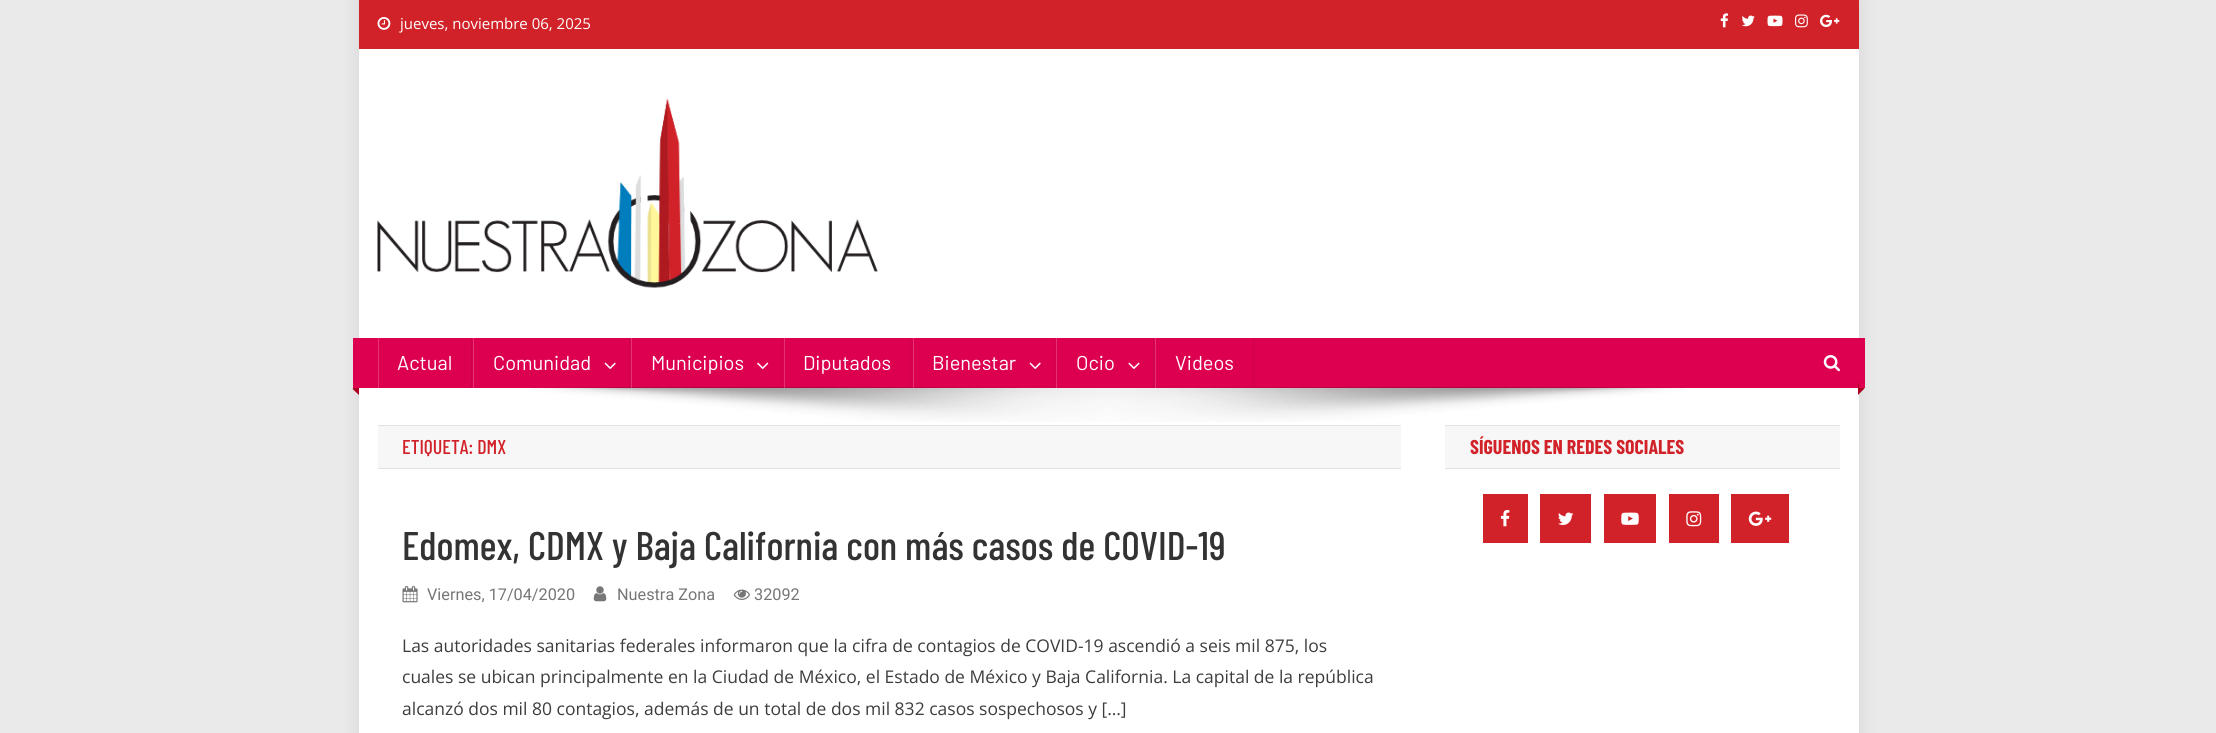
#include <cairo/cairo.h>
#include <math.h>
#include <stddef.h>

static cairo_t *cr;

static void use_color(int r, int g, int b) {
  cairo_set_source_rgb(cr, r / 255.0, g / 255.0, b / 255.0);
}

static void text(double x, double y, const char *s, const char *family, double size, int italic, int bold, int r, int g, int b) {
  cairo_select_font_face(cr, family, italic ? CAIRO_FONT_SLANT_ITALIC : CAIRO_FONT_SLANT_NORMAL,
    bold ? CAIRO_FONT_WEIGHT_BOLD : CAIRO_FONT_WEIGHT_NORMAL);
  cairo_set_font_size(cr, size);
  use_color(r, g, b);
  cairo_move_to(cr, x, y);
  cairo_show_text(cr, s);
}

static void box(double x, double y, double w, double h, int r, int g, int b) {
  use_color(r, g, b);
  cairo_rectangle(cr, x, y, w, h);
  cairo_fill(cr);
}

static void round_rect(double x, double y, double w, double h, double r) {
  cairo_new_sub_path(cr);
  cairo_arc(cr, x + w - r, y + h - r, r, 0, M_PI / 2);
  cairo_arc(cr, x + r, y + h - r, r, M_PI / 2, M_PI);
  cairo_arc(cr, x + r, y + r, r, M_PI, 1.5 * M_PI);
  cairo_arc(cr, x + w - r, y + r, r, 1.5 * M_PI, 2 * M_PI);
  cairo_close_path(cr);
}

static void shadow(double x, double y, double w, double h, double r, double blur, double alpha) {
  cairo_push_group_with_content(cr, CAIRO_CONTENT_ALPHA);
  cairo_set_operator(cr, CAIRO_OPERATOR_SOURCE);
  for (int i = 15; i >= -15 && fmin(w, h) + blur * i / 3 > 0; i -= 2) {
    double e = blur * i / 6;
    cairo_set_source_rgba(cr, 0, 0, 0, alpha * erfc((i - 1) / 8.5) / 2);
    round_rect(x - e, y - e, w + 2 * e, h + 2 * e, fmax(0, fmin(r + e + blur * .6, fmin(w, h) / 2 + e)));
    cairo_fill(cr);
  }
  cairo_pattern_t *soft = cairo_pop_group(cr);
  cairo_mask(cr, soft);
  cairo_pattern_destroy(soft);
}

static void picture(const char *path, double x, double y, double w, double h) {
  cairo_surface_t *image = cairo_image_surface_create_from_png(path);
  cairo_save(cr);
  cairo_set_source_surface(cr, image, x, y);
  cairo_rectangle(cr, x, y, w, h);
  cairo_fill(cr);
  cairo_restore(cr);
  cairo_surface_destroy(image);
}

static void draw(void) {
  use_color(234, 234, 234);
  cairo_paint(cr);
  use_color(0, 0, 0);
  shadow(359, 0, 1500, 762, 0, 9.5, 0.1);
  box(359, 49, 1500, 684, 255, 255, 255);
  box(359, 0, 1500, 49, 210, 34, 41);
  picture("img_01.png", 377, 17, 14, 13);
  picture("img_02.png", 1720, 13, 9, 15);
  picture("img_03.png", 1741, 15, 14, 12);
  picture("img_04.png", 1767, 15, 16, 12);
  picture("img_05.png", 1795, 14, 13, 14);
  picture("img_06.png", 1820, 14, 20, 13);
  picture("img_07.png", 377, 98, 501, 190);
  box(359, 338, 1500, 50, 221, 0, 81);
  use_color(171, 0, 31);
  cairo_new_path(cr);
  cairo_move_to(cr, 359, 382.5);
  cairo_line_to(cr, 359, 395);
  cairo_line_to(cr, 352.5, 389);
  cairo_close_path(cr);
  cairo_fill(cr);
  box(353, 338, 6, 50, 221, 0, 81);
  box(471, 338, 1, 50, 203, 0, 75);
  box(378, 338, 1, 50, 228, 51, 116);
  picture("img_12.png", 531, 387, 1154, 35);
  cairo_set_source_rgba(cr, 0, 0, 0, 0.08);
  cairo_rectangle(cr, 629, 338, 1, 50);
  cairo_fill(cr);
  box(473, 338, 1, 50, 228, 51, 116);
  picture("img_08.png", 604, 362, 12, 8);
  cairo_set_source_rgba(cr, 0, 0, 0, 0.08);
  cairo_rectangle(cr, 781, 338, 1, 50);
  cairo_fill(cr);
  cairo_set_source_rgba(cr, 1, 1, 1, 0.2);
  cairo_rectangle(cr, 631, 338, 1, 50);
  cairo_fill(cr);
  picture("img_09.png", 757, 362, 12, 8);
  cairo_set_source_rgba(cr, 0, 0, 0, 0.08);
  cairo_rectangle(cr, 910, 338, 1, 50);
  cairo_fill(cr);
  cairo_set_source_rgba(cr, 1, 1, 1, 0.2);
  cairo_rectangle(cr, 784, 338, 1, 50);
  cairo_fill(cr);
  cairo_set_source_rgba(cr, 0, 0, 0, 0.08);
  cairo_rectangle(cr, 1054, 338, 1, 50);
  cairo_fill(cr);
  cairo_set_source_rgba(cr, 1, 1, 1, 0.2);
  cairo_rectangle(cr, 913, 338, 1, 50);
  cairo_fill(cr);
  picture("img_08.png", 1029, 362, 12, 8);
  cairo_set_source_rgba(cr, 0, 0, 0, 0.08);
  cairo_rectangle(cr, 1153, 338, 1, 50);
  cairo_fill(cr);
  cairo_set_source_rgba(cr, 1, 1, 1, 0.2);
  cairo_rectangle(cr, 1056, 338, 1, 50);
  cairo_fill(cr);
  picture("img_10.png", 1128, 362, 12, 8);
  cairo_set_source_rgba(cr, 0, 0, 0, 0.08);
  cairo_rectangle(cr, 1253, 338, 1, 50);
  cairo_fill(cr);
  cairo_set_source_rgba(cr, 1, 1, 1, 0.2);
  cairo_rectangle(cr, 1155, 338, 1, 50);
  cairo_fill(cr);
  picture("img_11.png", 1823, 355, 17, 17);
  use_color(171, 0, 31);
  cairo_new_path(cr);
  cairo_move_to(cr, 1858, 395);
  cairo_line_to(cr, 1858, 382.5);
  cairo_line_to(cr, 1864.5, 388.5);
  cairo_close_path(cr);
  cairo_fill(cr);
  box(1859, 338, 6, 50, 221, 0, 81);
  box(378, 426, 1023, 42, 247, 247, 247);
  box(378, 425, 1023, 1, 225, 225, 225);
  box(378, 468, 1023, 1, 225, 225, 225);
  picture("img_13.png", 402, 586, 16, 17);
  picture("img_14.png", 593, 586, 14, 16);
  picture("img_15.png", 733, 589, 17, 11);
  box(1445, 426, 395, 42, 247, 247, 247);
  box(1445, 425, 395, 1, 225, 225, 225);
  box(1445, 468, 395, 1, 225, 225, 225);
  box(1483, 494, 45, 49, 210, 34, 41);
  picture("img_16.png", 1500, 510, 10, 17);
  box(1540, 494, 51, 49, 210, 34, 41);
  picture("img_17.png", 1558, 512, 16, 13);
  box(1604, 494, 52, 49, 210, 34, 41);
  picture("img_18.png", 1621, 512, 18, 13);
  box(1669, 494, 50, 49, 210, 34, 41);
  picture("img_19.png", 1686, 511, 16, 16);
  box(1731, 494, 58, 49, 210, 34, 41);
  picture("img_20.png", 1748, 511, 24, 15);
  text(400, 29, "jueves, noviembre 06, 2025", "Open Sans", 15, 0, 0, 255, 255, 255);
  text(397, 370, "Actual", "Barlow", 20, 0, 0, 255, 255, 255);
  text(493, 370, "Comunidad", "Barlow", 20, 0, 0, 255, 255, 255);
  text(651, 370, "Municipios", "Barlow", 20, 0, 0, 255, 255, 255);
  text(803, 370, "Diputados", "Barlow", 20, 0, 0, 255, 255, 255);
  text(932, 370, "Bienestar", "Barlow", 20, 0, 0, 255, 255, 255);
  text(1076, 370, "Ocio", "Barlow", 20, 0, 0, 255, 255, 255);
  text(1175, 370, "Videos", "Barlow", 20, 0, 0, 255, 255, 255);
  text(402, 454, "ETIQUETA: DMX", "Barlow Condensed Medium", 20, 0, 0, 210, 34, 41);
  text(402, 560, "Edomex, CDMX y Baja California con más casos de COVID-19", "Barlow Condensed Medium", 40, 0, 0, 51, 51, 51);
  text(427, 600, "Viernes, 17/04/2020", "Roboto", 16.25, 0, 0, 118, 118, 118);
  text(617, 600, "Nuestra Zona", "Roboto", 16.25, 0, 0, 118, 118, 118);
  text(754, 600, "32092", "Roboto", 16.25, 0, 0, 118, 118, 118);
  text(402, 652, "Las autoridades sanitarias federales informaron que la cifra de contagios de COVID-19 ascendió a seis mil 875, los", "Open Sans", 17.5, 0, 0, 61, 61, 61);
  text(402, 683, "cuales se ubican principalmente en la Ciudad de México, el Estado de México y Baja California. La capital de la república", "Open Sans", 17.5, 0, 0, 61, 61, 61);
  text(402, 715, "alcanzó dos mil 80 contagios, además de un total de dos mil 832 casos sospechosos y […]", "Open Sans", 17.5, 0, 0, 61, 61, 61);
  text(1470, 454, "SÍGUENOS EN REDES SOCIALES", "Barlow Condensed", 20, 0, 1, 210, 34, 41);
}

int main(void) {
  cairo_surface_t *surface = cairo_image_surface_create(CAIRO_FORMAT_RGB24, 2216, 733);
  cr = cairo_create(surface);
  cairo_font_options_t *options = cairo_font_options_create();
  cairo_font_options_set_hint_metrics(options, CAIRO_HINT_METRICS_OFF);
  cairo_font_options_set_hint_style(options, CAIRO_HINT_STYLE_NONE);
  cairo_set_font_options(cr, options);
  cairo_set_miter_limit(cr, 4);
  draw();
  cairo_surface_write_to_png(surface, "out.png");
  cairo_font_options_destroy(options);
  cairo_destroy(cr);
  cairo_surface_destroy(surface);
  return 0;
}
